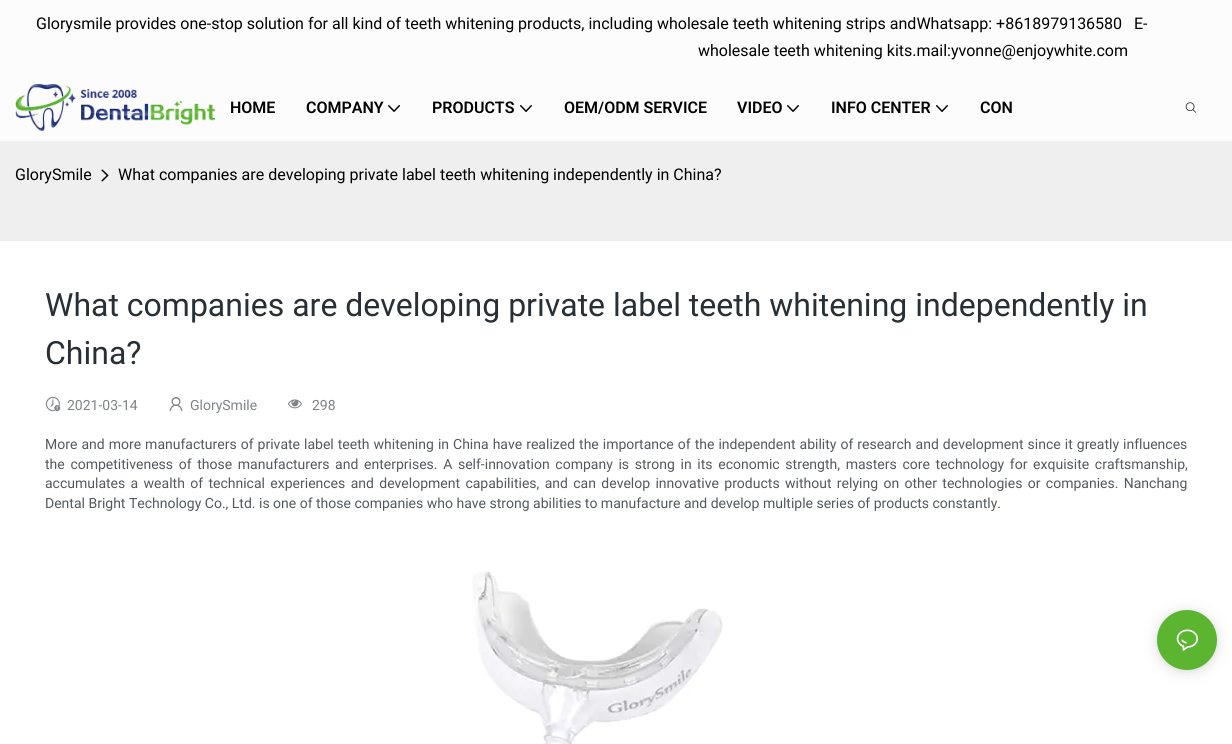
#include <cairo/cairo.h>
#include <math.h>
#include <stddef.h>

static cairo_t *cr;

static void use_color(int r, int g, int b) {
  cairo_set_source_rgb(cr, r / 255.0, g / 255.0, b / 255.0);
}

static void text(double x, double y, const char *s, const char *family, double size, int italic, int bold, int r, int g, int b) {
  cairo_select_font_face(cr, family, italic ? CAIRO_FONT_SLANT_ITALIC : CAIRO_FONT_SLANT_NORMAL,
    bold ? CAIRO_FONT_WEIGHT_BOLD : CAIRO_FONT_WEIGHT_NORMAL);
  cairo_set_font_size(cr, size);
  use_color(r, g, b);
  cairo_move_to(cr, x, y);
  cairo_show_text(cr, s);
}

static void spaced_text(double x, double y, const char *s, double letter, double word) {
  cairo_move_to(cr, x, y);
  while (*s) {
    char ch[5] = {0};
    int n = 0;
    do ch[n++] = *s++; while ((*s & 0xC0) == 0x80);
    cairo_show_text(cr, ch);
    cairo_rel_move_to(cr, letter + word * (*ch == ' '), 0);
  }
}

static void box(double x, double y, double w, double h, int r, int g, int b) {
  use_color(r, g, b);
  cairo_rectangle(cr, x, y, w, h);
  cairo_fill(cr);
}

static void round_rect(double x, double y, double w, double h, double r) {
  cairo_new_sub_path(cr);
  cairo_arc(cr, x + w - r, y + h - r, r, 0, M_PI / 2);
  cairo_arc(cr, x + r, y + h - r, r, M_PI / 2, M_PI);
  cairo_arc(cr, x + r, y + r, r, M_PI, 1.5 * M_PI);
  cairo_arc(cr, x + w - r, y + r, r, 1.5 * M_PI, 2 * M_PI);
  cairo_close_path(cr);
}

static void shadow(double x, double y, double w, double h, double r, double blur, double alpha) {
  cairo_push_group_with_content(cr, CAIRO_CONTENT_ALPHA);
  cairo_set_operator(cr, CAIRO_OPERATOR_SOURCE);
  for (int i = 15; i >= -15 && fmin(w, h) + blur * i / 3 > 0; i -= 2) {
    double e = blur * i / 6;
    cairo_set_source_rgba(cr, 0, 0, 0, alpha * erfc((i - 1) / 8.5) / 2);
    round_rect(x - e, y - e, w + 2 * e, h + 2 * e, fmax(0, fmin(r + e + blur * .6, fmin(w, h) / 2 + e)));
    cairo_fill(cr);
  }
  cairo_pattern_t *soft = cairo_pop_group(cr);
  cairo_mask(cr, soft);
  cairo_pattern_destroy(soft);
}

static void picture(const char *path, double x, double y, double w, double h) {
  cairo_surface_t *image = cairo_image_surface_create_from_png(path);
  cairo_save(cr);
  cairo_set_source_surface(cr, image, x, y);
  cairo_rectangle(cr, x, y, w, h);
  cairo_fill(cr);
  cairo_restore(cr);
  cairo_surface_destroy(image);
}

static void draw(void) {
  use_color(239, 239, 239);
  cairo_paint(cr);
  box(0, 0, 1232, 141, 252, 252, 252);
  picture("img_01.png", 15, 84, 200, 47);
  picture("img_02.png", 388, 105, 12, 7);
  picture("img_02.png", 520, 105, 12, 7);
  picture("img_02.png", 787, 105, 12, 7);
  picture("img_02.png", 936, 105, 12, 7);
  picture("img_03.png", 1185, 102, 12, 11);
  picture("img_04.png", 101, 169, 8, 13);
  box(0, 241, 1232, 503, 255, 255, 255);
  picture("img_05.png", 45, 396, 16, 16);
  picture("img_06.png", 169, 397, 14, 14);
  picture("img_07.png", 288, 399, 14, 10);
  picture("img_08.png", 472, 571, 251, 173);
  use_color(0, 0, 0);
  shadow(1157, 612, 60, 60, 30, 8, 0.12);
  shadow(1157, 611, 60, 60, 30, 2, 0.06);
  use_color(91, 181, 49);
  cairo_arc(cr, 1187, 640, 30, 0, 2 * M_PI);
  cairo_fill(cr);
  picture("img_09.png", 1176, 629, 22, 22);
  text(36, 29, "Glorysmile provides one-stop solution for all kind of teeth whitening products, including wholesale teeth whitening strips andWhatsapp: +8618979136580   E-", "Roboto", 16, 0, 0, 0, 0, 0);
  text(698, 56, "wholesale teeth whitening kits.mail:yvonne@enjoywhite.com", "Roboto", 16, 0, 0, 0, 0, 0);
  text(230, 113, "HOME", "Roboto SemiBold", 16, 0, 0, 0, 0, 0);
  text(306, 113, "COMPANY", "Roboto SemiBold", 16, 0, 0, 0, 0, 0);
  text(432, 113, "PRODUCTS", "Roboto SemiBold", 16, 0, 0, 0, 0, 0);
  text(564, 113, "OEM/ODM SERVICE", "Roboto SemiBold", 16, 0, 0, 0, 0, 0);
  text(737, 113, "VIDEO", "Roboto SemiBold", 16, 0, 0, 0, 0, 0);
  text(831, 113, "INFO CENTER", "Roboto SemiBold", 16, 0, 0, 0, 0, 0);
  text(980, 113, "CON", "Roboto SemiBold", 16, 0, 0, 0, 0, 0);
  text(15, 180, "GlorySmile", "Roboto", 16, 0, 0, 0, 0, 0);
  text(118, 180, "What companies are developing private label teeth whitening independently in China?", "Roboto", 16, 0, 0, 0, 0, 0);
  text(45, 316, "What companies are developing private label teeth whitening independently in", "Roboto", 32, 0, 0, 40, 48, 54);
  text(45, 364, "China?", "Roboto", 32, 0, 0, 40, 48, 54);
  text(67, 410, "2021-03-14", "Roboto", 14, 0, 0, 126, 131, 134);
  text(190, 410, "GlorySmile", "Roboto", 14, 0, 0, 126, 131, 134);
  text(312, 410, "298", "Roboto", 14, 0, 0, 126, 131, 134);
  use_color(83, 89, 94);
  spaced_text(45, 449, "More and more manufacturers of private label teeth whitening in China have realized the importance of the independent ability of research and development since it greatly influences", 0, 0.55);
  spaced_text(45, 469, "the competitiveness of those manufacturers and enterprises. A self-innovation company is strong in its economic strength, masters core technology for exquisite craftsmanship,", 0, 2.2);
  spaced_text(45, 488, "accumulates a wealth of technical experiences and development capabilities, and can develop innovative products without relying on other technologies or companies. Nanchang", 0, 1.9);
  text(45, 508, "Dental Bright Technology Co., Ltd. is one of those companies who have strong abilities to manufacture and develop multiple series of products constantly.", "Roboto", 14, 0, 0, 83, 89, 94);
}

int main(void) {
  cairo_surface_t *surface = cairo_image_surface_create(CAIRO_FORMAT_RGB24, 1232, 744);
  cr = cairo_create(surface);
  cairo_font_options_t *options = cairo_font_options_create();
  cairo_font_options_set_hint_metrics(options, CAIRO_HINT_METRICS_OFF);
  cairo_font_options_set_hint_style(options, CAIRO_HINT_STYLE_NONE);
  cairo_set_font_options(cr, options);
  cairo_set_miter_limit(cr, 4);
  draw();
  cairo_surface_write_to_png(surface, "out.png");
  cairo_font_options_destroy(options);
  cairo_destroy(cr);
  cairo_surface_destroy(surface);
  return 0;
}
